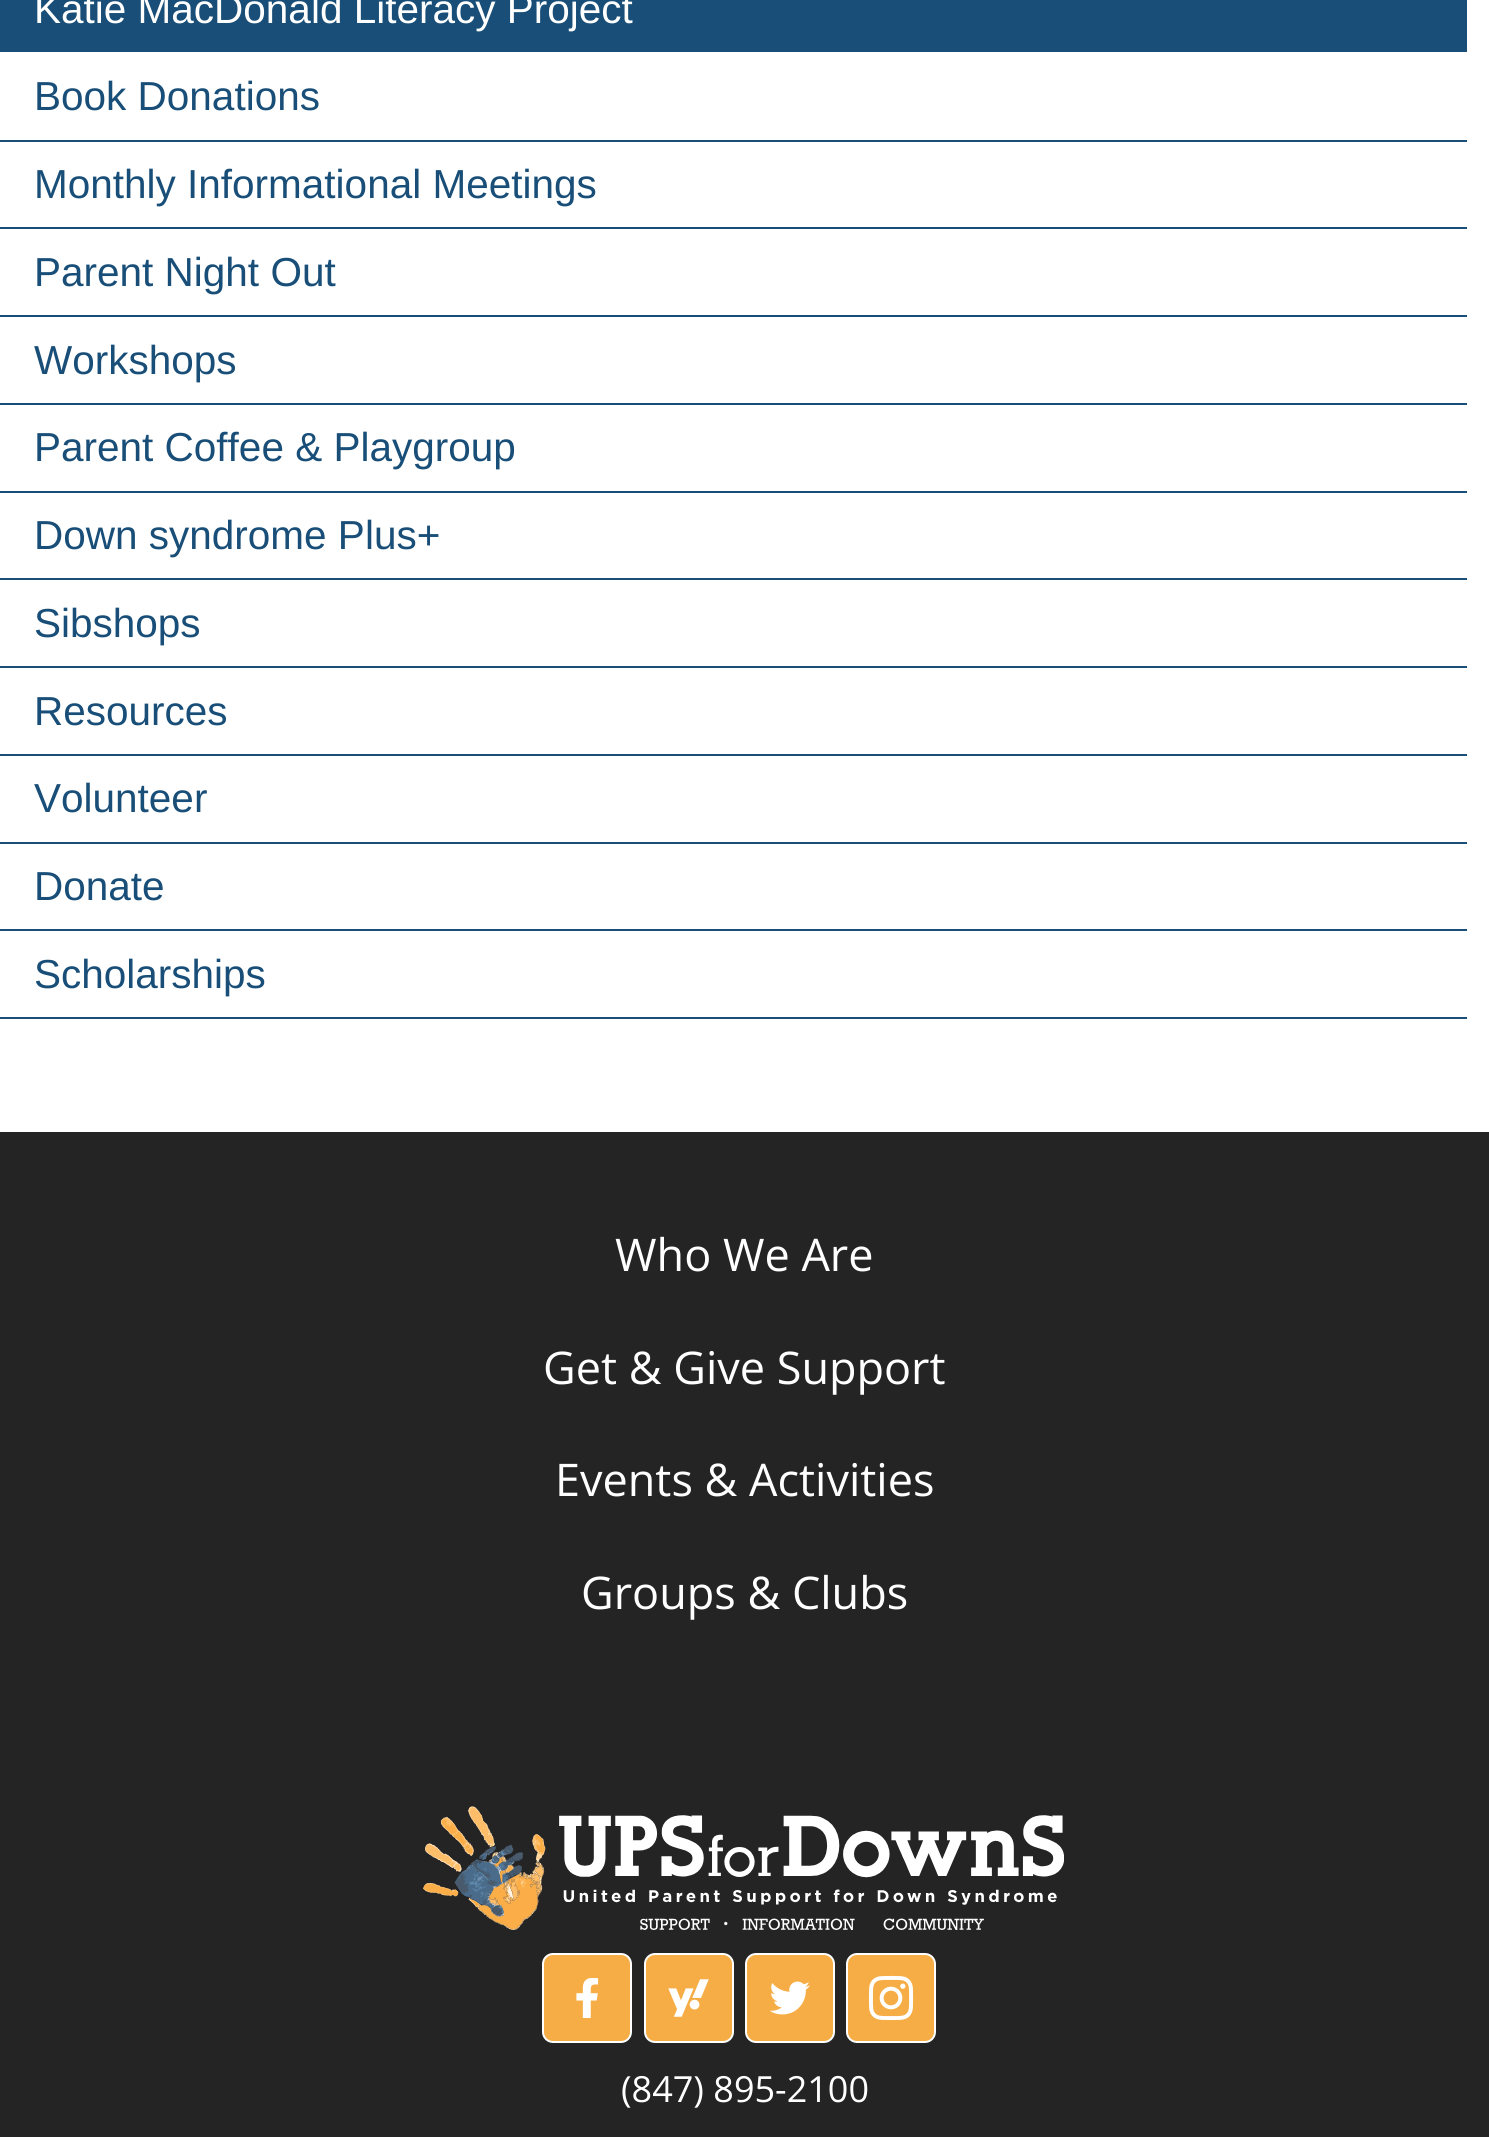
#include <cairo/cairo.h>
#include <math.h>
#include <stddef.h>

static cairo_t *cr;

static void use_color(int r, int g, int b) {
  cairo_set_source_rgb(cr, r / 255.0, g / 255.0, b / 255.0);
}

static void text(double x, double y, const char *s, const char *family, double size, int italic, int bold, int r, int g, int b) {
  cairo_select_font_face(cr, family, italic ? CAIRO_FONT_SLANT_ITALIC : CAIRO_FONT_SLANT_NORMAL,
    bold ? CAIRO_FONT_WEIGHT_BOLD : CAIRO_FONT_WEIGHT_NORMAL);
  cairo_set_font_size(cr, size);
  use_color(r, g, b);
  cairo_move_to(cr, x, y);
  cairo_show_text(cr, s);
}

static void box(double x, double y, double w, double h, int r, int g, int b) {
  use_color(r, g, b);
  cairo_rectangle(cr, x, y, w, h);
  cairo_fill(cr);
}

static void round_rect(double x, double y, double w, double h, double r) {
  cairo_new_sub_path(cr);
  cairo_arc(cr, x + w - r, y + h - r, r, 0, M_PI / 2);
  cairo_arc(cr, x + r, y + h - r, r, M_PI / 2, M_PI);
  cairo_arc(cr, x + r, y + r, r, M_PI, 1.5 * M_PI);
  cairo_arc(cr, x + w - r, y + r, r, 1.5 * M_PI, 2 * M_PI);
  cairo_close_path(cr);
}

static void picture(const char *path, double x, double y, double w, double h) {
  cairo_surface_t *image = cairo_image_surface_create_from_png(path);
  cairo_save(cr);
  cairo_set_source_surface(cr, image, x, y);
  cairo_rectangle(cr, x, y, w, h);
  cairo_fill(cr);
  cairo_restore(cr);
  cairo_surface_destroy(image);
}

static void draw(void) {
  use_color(255, 255, 255);
  cairo_paint(cr);
  box(0, 0, 1467, 52, 24, 78, 119);
  box(0, 140, 1467, 2, 24, 78, 119);
  box(0, 227, 1467, 2, 24, 78, 119);
  box(0, 315, 1467, 2, 24, 78, 119);
  box(0, 403, 1467, 2, 24, 78, 119);
  box(0, 491, 1467, 2, 24, 78, 119);
  box(0, 578, 1467, 2, 24, 78, 119);
  box(0, 666, 1467, 2, 24, 78, 119);
  box(0, 754, 1467, 2, 24, 78, 119);
  box(0, 842, 1467, 2, 24, 78, 119);
  box(0, 929, 1467, 2, 24, 78, 119);
  box(0, 1017, 1467, 2, 24, 78, 119);
  box(0, 1132, 1489, 1005, 36, 36, 36);
  picture("img_01.png", 423, 1806, 641, 124);
  use_color(246, 173, 69);
  round_rect(543, 1954, 88, 88, 10);
  cairo_fill_preserve(cr);
  use_color(255, 255, 255);
  cairo_stroke(cr);
  picture("img_02.png", 576, 1978, 23, 40);
  use_color(246, 173, 69);
  round_rect(645, 1954, 88, 88, 10);
  cairo_fill_preserve(cr);
  use_color(255, 255, 255);
  cairo_stroke(cr);
  picture("img_03.png", 668, 1979, 41, 38);
  use_color(246, 173, 69);
  round_rect(746, 1954, 88, 88, 10);
  cairo_fill_preserve(cr);
  use_color(255, 255, 255);
  cairo_stroke(cr);
  picture("img_04.png", 770, 1981, 40, 34);
  use_color(246, 173, 69);
  round_rect(847, 1954, 88, 88, 10);
  cairo_fill_preserve(cr);
  use_color(255, 255, 255);
  cairo_stroke(cr);
  picture("img_05.png", 868, 1975, 46, 46);
  text(34, 23, "Katie MacDonald Literacy Project", "Liberation Sans", 40.5, 0, 0, 255, 255, 255);
  text(34, 110, "Book Donations", "Liberation Sans", 40.5, 0, 0, 24, 78, 119);
  text(34, 198, "Monthly Informational Meetings", "Liberation Sans", 40.5, 0, 0, 24, 78, 119);
  text(34, 286, "Parent Night Out", "Liberation Sans", 40.5, 0, 0, 24, 78, 119);
  text(34, 374, "Workshops", "Liberation Sans", 40.5, 0, 0, 24, 78, 119);
  text(34, 461, "Parent Coffee & Playgroup", "Liberation Sans", 40.5, 0, 0, 24, 78, 119);
  text(34, 549, "Down syndrome Plus+", "Liberation Sans", 40.5, 0, 0, 24, 78, 119);
  text(34, 637, "Sibshops", "Liberation Sans", 40.5, 0, 0, 24, 78, 119);
  text(34, 725, "Resources", "Liberation Sans", 40.5, 0, 0, 24, 78, 119);
  text(34, 812, "Volunteer", "Liberation Sans", 40.5, 0, 0, 24, 78, 119);
  text(34, 900, "Donate", "Liberation Sans", 40.5, 0, 0, 24, 78, 119);
  text(34, 988, "Scholarships", "Liberation Sans", 40.5, 0, 0, 24, 78, 119);
  text(615, 1271, "Who We Are", "Open Sans", 45, 0, 0, 255, 255, 255);
  text(543, 1384, "Get & Give Support", "Open Sans", 45, 0, 0, 255, 255, 255);
  text(555, 1496, "Events & Activities", "Open Sans", 45, 0, 0, 255, 255, 255);
  text(581, 1609, "Groups & Clubs", "Open Sans", 45, 0, 0, 255, 255, 255);
  text(621, 2102, "(847) 895-2100", "Open Sans", 36, 0, 0, 255, 255, 255);
}

int main(void) {
  cairo_surface_t *surface = cairo_image_surface_create(CAIRO_FORMAT_RGB24, 1489, 2137);
  cr = cairo_create(surface);
  cairo_font_options_t *options = cairo_font_options_create();
  cairo_font_options_set_hint_metrics(options, CAIRO_HINT_METRICS_OFF);
  cairo_font_options_set_hint_style(options, CAIRO_HINT_STYLE_NONE);
  cairo_set_font_options(cr, options);
  cairo_set_miter_limit(cr, 4);
  draw();
  cairo_surface_write_to_png(surface, "out.png");
  cairo_font_options_destroy(options);
  cairo_destroy(cr);
  cairo_surface_destroy(surface);
  return 0;
}
